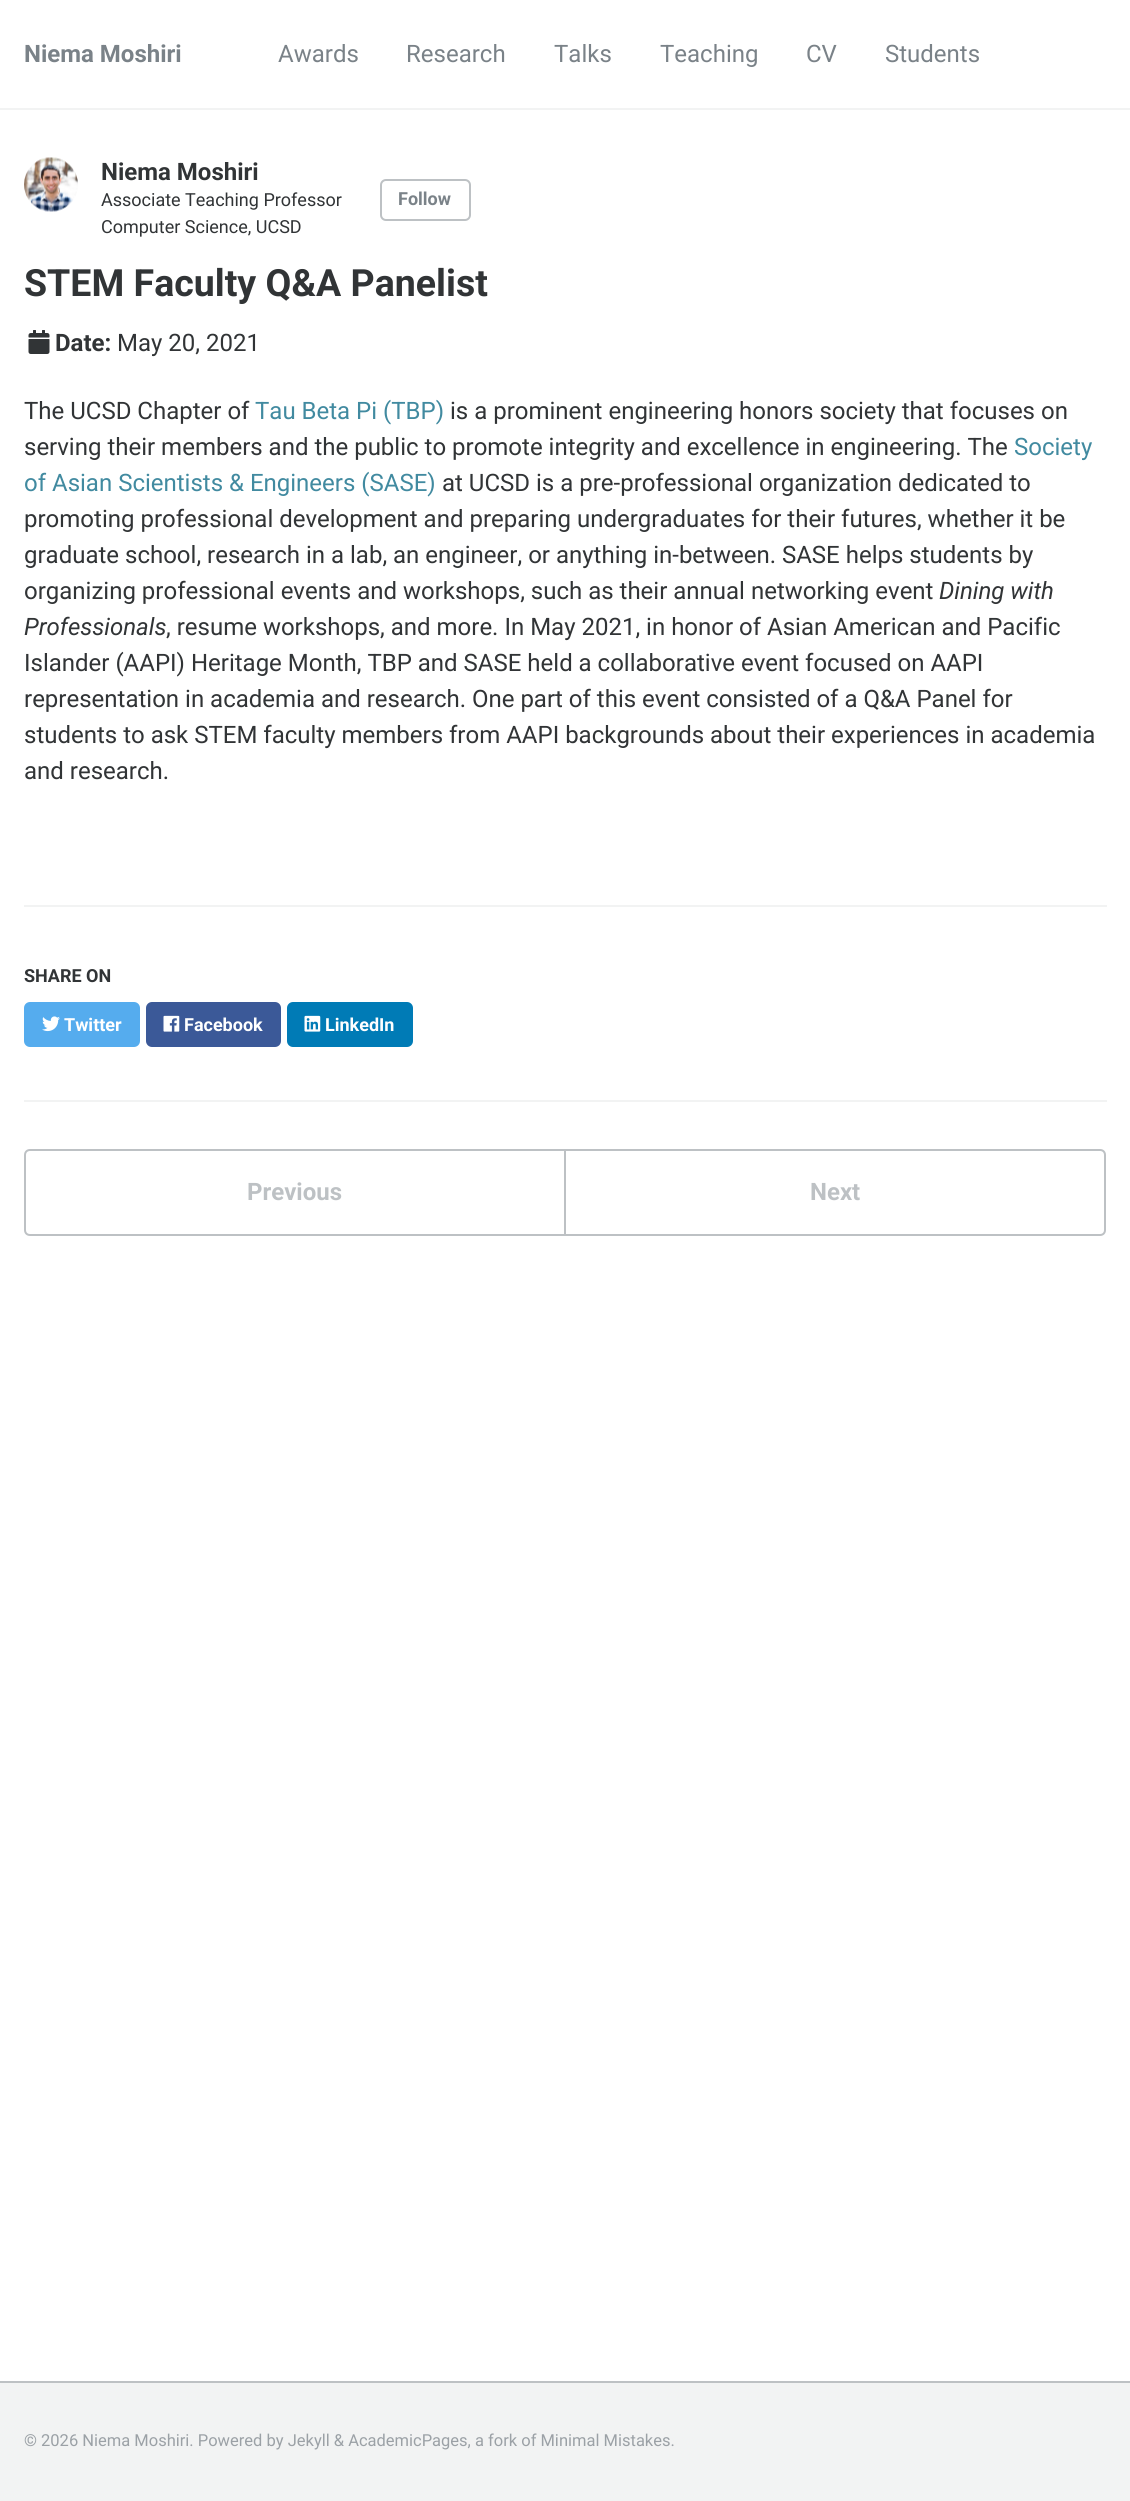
#include <cairo/cairo.h>
#include <math.h>
#include <stddef.h>

static cairo_t *cr;

static void use_color(int r, int g, int b) {
  cairo_set_source_rgb(cr, r / 255.0, g / 255.0, b / 255.0);
}

static void text(double x, double y, const char *s, const char *family, double size, int italic, int bold, int r, int g, int b) {
  cairo_select_font_face(cr, family, italic ? CAIRO_FONT_SLANT_ITALIC : CAIRO_FONT_SLANT_NORMAL,
    bold ? CAIRO_FONT_WEIGHT_BOLD : CAIRO_FONT_WEIGHT_NORMAL);
  cairo_set_font_size(cr, size);
  use_color(r, g, b);
  cairo_move_to(cr, x, y);
  cairo_show_text(cr, s);
}

static void box(double x, double y, double w, double h, int r, int g, int b) {
  use_color(r, g, b);
  cairo_rectangle(cr, x, y, w, h);
  cairo_fill(cr);
}

static void round_rect(double x, double y, double w, double h, double r) {
  cairo_new_sub_path(cr);
  cairo_arc(cr, x + w - r, y + h - r, r, 0, M_PI / 2);
  cairo_arc(cr, x + r, y + h - r, r, M_PI / 2, M_PI);
  cairo_arc(cr, x + r, y + r, r, M_PI, 1.5 * M_PI);
  cairo_arc(cr, x + w - r, y + r, r, 1.5 * M_PI, 2 * M_PI);
  cairo_close_path(cr);
}

static void picture(const char *path, double x, double y, double w, double h) {
  cairo_surface_t *image = cairo_image_surface_create_from_png(path);
  cairo_save(cr);
  cairo_set_source_surface(cr, image, x, y);
  cairo_rectangle(cr, x, y, w, h);
  cairo_fill(cr);
  cairo_restore(cr);
  cairo_surface_destroy(image);
}

static void draw(void) {
  use_color(255, 255, 255);
  cairo_paint(cr);
  box(0, 108, 1130, 2, 242, 243, 243);
  picture("img_01.png", 24, 157, 54, 55);
  round_rect(381, 180, 89, 40, 5);
  use_color(189, 193, 196);
  cairo_stroke(cr);
  picture("img_02.png", 28, 330, 22, 24);
  box(24, 905, 1083, 2, 242, 243, 243);
  use_color(85, 172, 238);
  round_rect(24, 1002, 116, 45, 6);
  cairo_fill(cr);
  picture("img_03.png", 42, 1016, 18, 16);
  use_color(59, 89, 152);
  round_rect(146, 1002, 135, 45, 6);
  cairo_fill(cr);
  picture("img_04.png", 163, 1015, 17, 17);
  use_color(0, 123, 182);
  round_rect(287, 1002, 126, 45, 6);
  cairo_fill(cr);
  picture("img_05.png", 304, 1015, 17, 17);
  box(24, 1100, 1083, 2, 242, 243, 243);
  cairo_new_path(cr);
  cairo_move_to(cr, 30, 1150);
  cairo_line_to(cr, 565, 1150);
  cairo_line_to(cr, 565, 1235);
  cairo_line_to(cr, 30, 1235);
  cairo_curve_to(cr, 27, 1235, 25, 1233, 25, 1230);
  cairo_line_to(cr, 25, 1155);
  cairo_curve_to(cr, 25, 1152, 27, 1150, 30, 1150);
  cairo_close_path(cr);
  use_color(189, 193, 196);
  cairo_stroke(cr);
  cairo_new_path(cr);
  cairo_move_to(cr, 565, 1150);
  cairo_line_to(cr, 1100, 1150);
  cairo_curve_to(cr, 1103, 1150, 1105, 1152, 1105, 1155);
  cairo_line_to(cr, 1105, 1230);
  cairo_curve_to(cr, 1105, 1233, 1103, 1235, 1100, 1235);
  cairo_line_to(cr, 565, 1235);
  cairo_close_path(cr);
  cairo_stroke(cr);
  box(0, 2383, 1130, 118, 242, 243, 243);
  box(0, 2381, 1130, 2, 189, 193, 196);
  text(24, 62, "Niema Moshiri", "Roboto", 24, 0, 1, 122, 130, 136);
  text(278, 62, "Awards", "Roboto", 24, 0, 0, 122, 130, 136);
  text(406, 62, "Research", "Roboto", 24, 0, 0, 122, 130, 136);
  text(554, 62, "Talks", "Roboto", 24, 0, 0, 122, 130, 136);
  text(660, 62, "Teaching", "Roboto", 24, 0, 0, 122, 130, 136);
  text(806, 62, "CV", "Roboto", 24, 0, 0, 122, 130, 136);
  text(885, 62, "Students", "Roboto", 24, 0, 0, 122, 130, 136);
  text(101, 180, "Niema Moshiri", "Roboto", 24, 0, 1, 49, 52, 54);
  text(101, 206, "Associate Teaching Professor", "Roboto", 18, 0, 0, 49, 52, 54);
  text(101, 233, "Computer Science, UCSD", "Roboto", 18, 0, 0, 49, 52, 54);
  text(398, 205, "Follow", "Roboto", 18, 0, 1, 122, 130, 136);
  text(24, 296, "STEM Faculty Q&A Panelist", "Roboto", 37.5, 0, 1, 49, 52, 54);
  text(55, 351, "Date:", "Roboto", 24, 0, 1, 49, 52, 54);
  text(117, 351, "May 20, 2021", "Roboto", 24, 0, 0, 49, 52, 54);
  text(24, 419, "The UCSD Chapter of", "Roboto", 24, 0, 0, 49, 52, 54);
  text(255, 419, "Tau Beta Pi (TBP)", "Roboto", 24, 0, 0, 65, 138, 160);
  text(450, 419, "is a prominent engineering honors society that focuses on", "Roboto", 24, 0, 0, 49, 52, 54);
  text(24, 455, "serving their members and the public to promote integrity and excellence in engineering. The", "Roboto", 24, 0, 0, 49, 52, 54);
  text(1014, 455, "Society", "Roboto", 24, 0, 0, 65, 138, 160);
  text(24, 491, "of Asian Scientists & Engineers (SASE)", "Roboto", 24, 0, 0, 65, 138, 160);
  text(442, 491, "at UCSD is a pre-professional organization dedicated to", "Roboto", 24, 0, 0, 49, 52, 54);
  text(24, 527, "promoting professional development and preparing undergraduates for their futures, whether it be", "Roboto", 24, 0, 0, 49, 52, 54);
  text(24, 563, "graduate school, research in a lab, an engineer, or anything in-between. SASE helps students by", "Roboto", 24, 0, 0, 49, 52, 54);
  text(24, 599, "organizing professional events and workshops, such as their annual networking event", "Roboto", 24, 0, 0, 49, 52, 54);
  text(939, 599, "Dining with", "Roboto", 24, 1, 0, 49, 52, 54);
  text(24, 635, "Professionals", "Roboto", 24, 1, 0, 49, 52, 54);
  text(166, 635, ", resume workshops, and more. In May 2021, in honor of Asian American and Pacific", "Roboto", 24, 0, 0, 49, 52, 54);
  text(24, 671, "Islander (AAPI) Heritage Month, TBP and SASE held a collaborative event focused on AAPI", "Roboto", 24, 0, 0, 49, 52, 54);
  text(24, 707, "representation in academia and research. One part of this event consisted of a Q&A Panel for", "Roboto", 24, 0, 0, 49, 52, 54);
  text(24, 743, "students to ask STEM faculty members from AAPI backgrounds about their experiences in academia", "Roboto", 24, 0, 0, 49, 52, 54);
  text(24, 779, "and research.", "Roboto", 24, 0, 0, 49, 52, 54);
  text(24, 982, "SHARE ON", "Roboto", 18, 0, 1, 49, 52, 54);
  text(64, 1031, "Twitter", "Roboto", 18, 0, 1, 255, 255, 255);
  text(184, 1031, "Facebook", "Roboto", 18, 0, 1, 255, 255, 255);
  text(325, 1031, "LinkedIn", "Roboto", 18, 0, 1, 255, 255, 255);
  text(247, 1200, "Previous", "Roboto", 24, 0, 1, 189, 193, 196);
  text(810, 1200, "Next", "Roboto", 24, 0, 1, 189, 193, 196);
  text(24, 2446, "© 2026 Niema Moshiri. Powered by Jekyll & AcademicPages, a fork of Minimal Mistakes.", "Roboto", 16.5, 0, 0, 155, 161, 166);
}

int main(void) {
  cairo_surface_t *surface = cairo_image_surface_create(CAIRO_FORMAT_RGB24, 1130, 2501);
  cr = cairo_create(surface);
  cairo_font_options_t *options = cairo_font_options_create();
  cairo_font_options_set_hint_metrics(options, CAIRO_HINT_METRICS_OFF);
  cairo_font_options_set_hint_style(options, CAIRO_HINT_STYLE_NONE);
  cairo_set_font_options(cr, options);
  cairo_set_miter_limit(cr, 4);
  draw();
  cairo_surface_write_to_png(surface, "out.png");
  cairo_font_options_destroy(options);
  cairo_destroy(cr);
  cairo_surface_destroy(surface);
  return 0;
}
